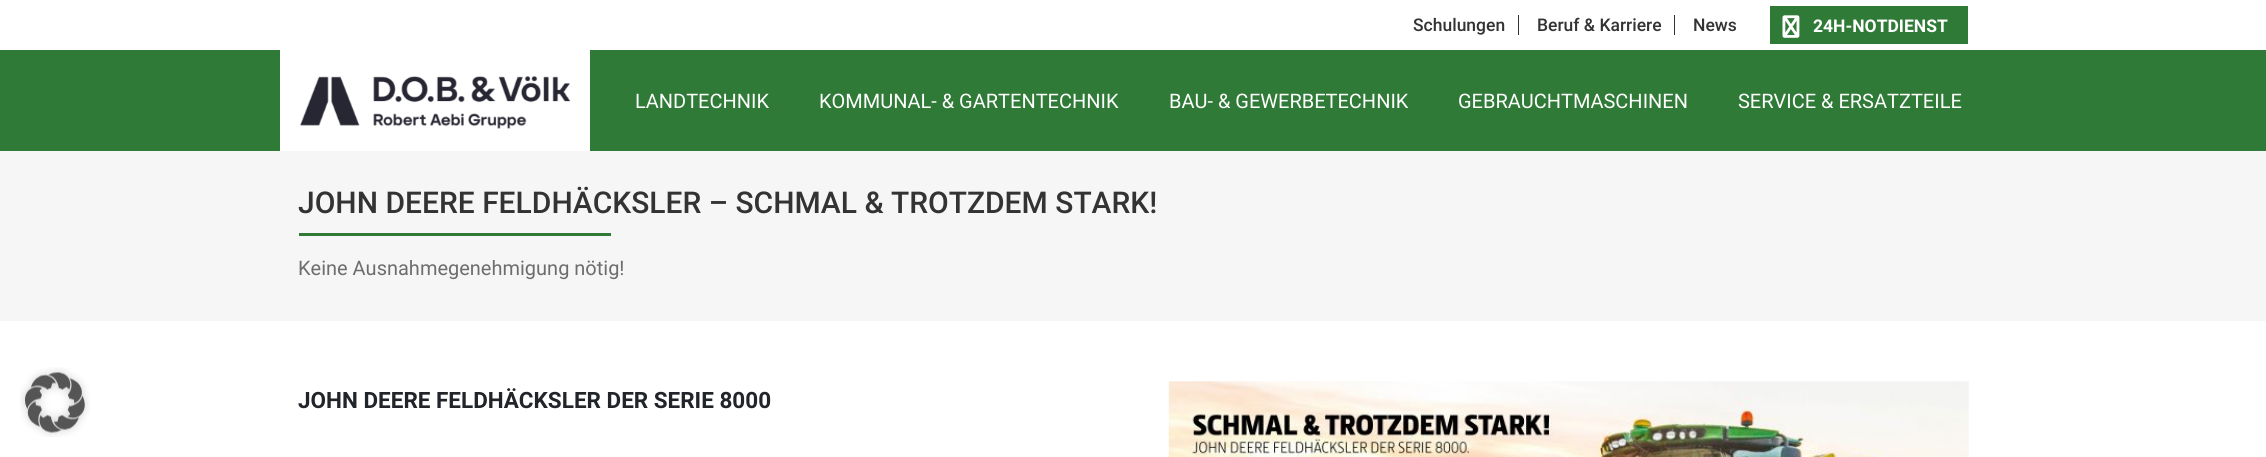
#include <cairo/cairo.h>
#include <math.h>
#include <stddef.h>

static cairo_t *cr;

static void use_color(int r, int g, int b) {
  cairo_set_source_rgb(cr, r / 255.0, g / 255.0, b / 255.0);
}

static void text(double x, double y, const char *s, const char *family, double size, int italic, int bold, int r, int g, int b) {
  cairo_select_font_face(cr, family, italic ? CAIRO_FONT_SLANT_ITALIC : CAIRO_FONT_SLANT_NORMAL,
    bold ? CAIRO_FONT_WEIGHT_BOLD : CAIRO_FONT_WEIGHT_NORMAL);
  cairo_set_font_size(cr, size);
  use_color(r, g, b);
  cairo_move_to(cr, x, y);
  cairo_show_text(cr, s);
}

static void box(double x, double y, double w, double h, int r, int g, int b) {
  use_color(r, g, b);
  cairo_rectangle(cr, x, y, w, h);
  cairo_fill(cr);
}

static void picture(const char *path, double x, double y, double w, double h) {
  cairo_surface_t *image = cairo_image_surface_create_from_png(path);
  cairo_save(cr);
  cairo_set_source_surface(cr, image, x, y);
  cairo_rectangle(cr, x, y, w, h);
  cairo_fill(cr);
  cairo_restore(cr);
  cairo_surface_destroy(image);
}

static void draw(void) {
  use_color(255, 255, 255);
  cairo_paint(cr);
  box(1518, 15, 1, 20, 51, 51, 51);
  box(1674, 15, 1, 20, 51, 51, 51);
  box(1770, 6, 198, 38, 47, 122, 54);
  picture("img_01.png", 1782, 15, 18, 23);
  box(0, 50, 2266, 101, 47, 122, 54);
  box(280, 50, 310, 101, 255, 255, 255);
  picture("img_02.png", 300, 76, 271, 53);
  picture("img_03.png", 20, 367, 70, 70);
  box(0, 151, 2266, 170, 246, 246, 246);
  box(299, 233, 312, 3, 47, 122, 54);
  picture("img_04.png", 1168, 381, 801, 76);
  text(1413, 31, "Schulungen", "Roboto Medium", 17.5, 0, 0, 51, 51, 51);
  text(1537, 31, "Beruf & Karriere", "Roboto Medium", 17.5, 0, 0, 51, 51, 51);
  text(1693, 31, "News", "Roboto Medium", 17.5, 0, 0, 51, 51, 51);
  text(1813, 32, "24H-NOTDIENST", "Roboto", 17.5, 0, 1, 255, 255, 255);
  text(635, 108, "LANDTECHNIK", "Roboto", 20, 0, 0, 255, 255, 255);
  text(819, 108, "KOMMUNAL- & GARTENTECHNIK", "Roboto", 20, 0, 0, 255, 255, 255);
  text(1169, 108, "BAU- & GEWERBETECHNIK", "Roboto", 20, 0, 0, 255, 255, 255);
  text(1458, 108, "GEBRAUCHTMASCHINEN", "Roboto", 20, 0, 0, 255, 255, 255);
  text(1738, 108, "SERVICE & ERSATZTEILE", "Roboto", 20, 0, 0, 255, 255, 255);
  text(298, 213, "JOHN DEERE FELDHÄCKSLER – SCHMAL & TROTZDEM STARK!", "Roboto Medium", 30, 0, 0, 51, 51, 51);
  text(298, 275, "Keine Ausnahmegenehmigung nötig!", "Roboto", 20, 0, 0, 109, 109, 109);
  text(298, 408, "JOHN DEERE FELDHÄCKSLER DER SERIE 8000", "Roboto", 22.5, 0, 1, 33, 37, 41);
}

int main(void) {
  cairo_surface_t *surface = cairo_image_surface_create(CAIRO_FORMAT_RGB24, 2266, 457);
  cr = cairo_create(surface);
  cairo_font_options_t *options = cairo_font_options_create();
  cairo_font_options_set_hint_metrics(options, CAIRO_HINT_METRICS_OFF);
  cairo_font_options_set_hint_style(options, CAIRO_HINT_STYLE_NONE);
  cairo_set_font_options(cr, options);
  cairo_set_miter_limit(cr, 4);
  draw();
  cairo_surface_write_to_png(surface, "out.png");
  cairo_font_options_destroy(options);
  cairo_destroy(cr);
  cairo_surface_destroy(surface);
  return 0;
}
